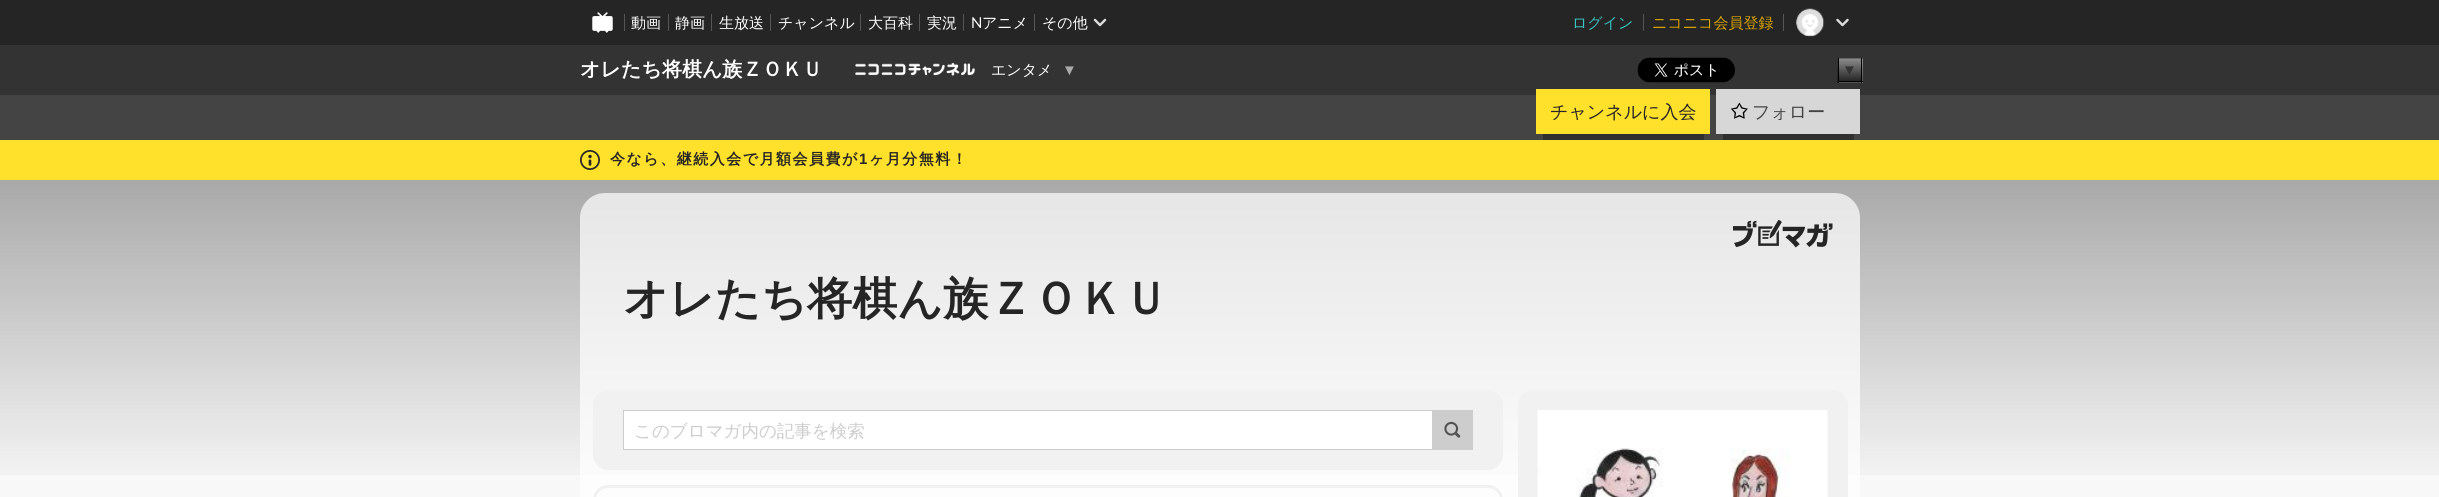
#include <cairo/cairo.h>
#include <math.h>
#include <stddef.h>

static cairo_t *cr;

static void use_color(int r, int g, int b) {
  cairo_set_source_rgb(cr, r / 255.0, g / 255.0, b / 255.0);
}

static void text(double x, double y, const char *s, const char *family, double size, int italic, int bold, int r, int g, int b) {
  cairo_select_font_face(cr, family, italic ? CAIRO_FONT_SLANT_ITALIC : CAIRO_FONT_SLANT_NORMAL,
    bold ? CAIRO_FONT_WEIGHT_BOLD : CAIRO_FONT_WEIGHT_NORMAL);
  cairo_set_font_size(cr, size);
  use_color(r, g, b);
  cairo_move_to(cr, x, y);
  cairo_show_text(cr, s);
}

static void spaced_text(double x, double y, const char *s, double letter, double word) {
  cairo_move_to(cr, x, y);
  while (*s) {
    char ch[5] = {0};
    int n = 0;
    do ch[n++] = *s++; while ((*s & 0xC0) == 0x80);
    cairo_show_text(cr, ch);
    cairo_rel_move_to(cr, letter + word * (*ch == ' '), 0);
  }
}

static void box(double x, double y, double w, double h, int r, int g, int b) {
  use_color(r, g, b);
  cairo_rectangle(cr, x, y, w, h);
  cairo_fill(cr);
}

static void round_rect(double x, double y, double w, double h, double r) {
  cairo_new_sub_path(cr);
  cairo_arc(cr, x + w - r, y + h - r, r, 0, M_PI / 2);
  cairo_arc(cr, x + r, y + h - r, r, M_PI / 2, M_PI);
  cairo_arc(cr, x + r, y + r, r, M_PI, 1.5 * M_PI);
  cairo_arc(cr, x + w - r, y + r, r, 1.5 * M_PI, 2 * M_PI);
  cairo_close_path(cr);
}

static void picture(const char *path, double x, double y, double w, double h) {
  cairo_surface_t *image = cairo_image_surface_create_from_png(path);
  cairo_save(cr);
  cairo_set_source_surface(cr, image, x, y);
  cairo_rectangle(cr, x, y, w, h);
  cairo_fill(cr);
  cairo_restore(cr);
  cairo_surface_destroy(image);
}

static void draw(void) {
  use_color(248, 248, 248);
  cairo_paint(cr);
  picture("img_01.png", 0, 180, 2439, 295);
  box(0, 0, 2439, 45, 37, 37, 37);
  picture("img_02.png", 592, 12, 21, 21);
  box(624, 14, 1, 17, 85, 85, 85);
  box(668, 14, 1, 17, 85, 85, 85);
  box(711, 14, 1, 17, 85, 85, 85);
  box(770, 14, 1, 17, 85, 85, 85);
  box(860, 14, 1, 17, 85, 85, 85);
  box(919, 14, 1, 17, 85, 85, 85);
  box(963, 14, 1, 17, 85, 85, 85);
  box(1034, 14, 1, 17, 85, 85, 85);
  picture("img_03.png", 1093, 18, 14, 9);
  box(1643, 14, 1, 17, 85, 85, 85);
  box(1783, 14, 1, 17, 85, 85, 85);
  picture("img_04.png", 1796, 8, 29, 29);
  picture("img_05.png", 1836, 18, 13, 9);
  box(0, 45, 2439, 50, 51, 51, 51);
  picture("img_06.png", 855, 63, 121, 13);
  picture("img_07.png", 1637, 57, 98, 26);
  box(1839, 59, 24, 24, 136, 136, 136);
  picture("img_08.png", 1837, 60, 26, 23);
  box(1838, 58, 25, 1, 102, 102, 102);
  box(1861, 58, 1, 25, 0, 0, 0);
  box(1838, 81, 25, 1, 0, 0, 0);
  box(1838, 58, 1, 25, 0, 0, 0);
  box(0, 95, 2439, 45, 68, 68, 68);
  box(1543, 134, 161, 6, 48, 48, 48);
  box(1536, 89, 174, 45, 255, 224, 43);
  box(1723, 134, 131, 6, 48, 48, 48);
  box(1716, 89, 144, 45, 215, 215, 215);
  picture("img_09.png", 1730, 102, 18, 17);
  box(0, 140, 2439, 40, 255, 224, 43);
  picture("img_10.png", 580, 150, 20, 20);
  cairo_set_source_rgba(cr, 1, 1, 1, 0.7);
  round_rect(580, 193, 1280, 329, 25);
  cairo_fill(cr);
  picture("img_11.png", 1733, 220, 100, 28);
  use_color(241, 241, 241);
  round_rect(593, 390, 910, 80, 15);
  cairo_fill(cr);
  use_color(255, 255, 255);
  cairo_rectangle(cr, 623.5, 410.5, 809, 39);
  cairo_fill_preserve(cr);
  use_color(205, 205, 205);
  cairo_set_line_width(cr, 1);
  cairo_stroke(cr);
  box(1433, 410, 40, 40, 205, 205, 205);
  picture("img_12.png", 1444, 421, 17, 17);
  round_rect(594.5, 486.5, 907, 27, 13.5);
  use_color(241, 241, 241);
  cairo_set_line_width(cr, 3);
  cairo_stroke(cr);
  round_rect(1518, 390, 330, 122, 15);
  cairo_fill(cr);
  picture("img_13.png", 1537, 410, 291, 87);
  text(631, 28, "動画", "WenQuanYi Zen Hei Medium", 15, 0, 0, 255, 255, 255);
  text(675, 28, "静画", "WenQuanYi Zen Hei Medium", 15, 0, 0, 255, 255, 255);
  text(719, 28, "生放送", "WenQuanYi Zen Hei Medium", 15, 0, 0, 255, 255, 255);
  text(778, 28, "チャンネル", "WenQuanYi Zen Hei Medium", 15, 0, 0, 255, 255, 255);
  text(868, 28, "大百科", "WenQuanYi Zen Hei Medium", 15, 0, 0, 255, 255, 255);
  text(927, 28, "実況", "WenQuanYi Zen Hei Medium", 15, 0, 0, 255, 255, 255);
  text(971, 28, "N", "Lato", 15, 0, 0, 255, 255, 255);
  text(982, 28, "アニメ", "WenQuanYi Zen Hei Medium", 15, 0, 0, 255, 255, 255);
  text(1042, 28, "その他", "WenQuanYi Zen Hei Medium", 15, 0, 0, 255, 255, 255);
  text(1572, 28, "ログイン", "WenQuanYi Zen Hei Medium", 15, 0, 0, 57, 196, 193);
  text(1652, 28, "ニコニコ会員登録", "WenQuanYi Zen Hei Medium", 15, 0, 0, 217, 163, 0);
  text(580, 76, "オレたち将棋ん族ＺＯＫＵ", "WenQuanYi Zen Hei", 20, 0, 1, 255, 255, 255);
  text(991, 75, "エンタメ", "WenQuanYi Zen Hei Medium", 15, 0, 0, 255, 255, 255);
  text(1062, 75, "▼", "Liberation Sans", 15, 0, 0, 170, 170, 170);
  text(1842, 75, "▼", "Liberation Sans", 15, 0, 0, 51, 51, 51);
  text(1550, 118, "チャンネルに入会", "WenQuanYi Zen Hei Medium", 18, 0, 0, 37, 37, 37);
  text(1752, 118, "フォロー", "WenQuanYi Zen Hei Medium", 18, 0, 0, 68, 68, 68);
  cairo_select_font_face(cr, "WenQuanYi Zen Hei", CAIRO_FONT_SLANT_NORMAL, CAIRO_FONT_WEIGHT_BOLD);
  cairo_set_font_size(cr, 15);
  use_color(37, 37, 37);
  spaced_text(610, 164, "今なら、継続入会で月額会員費が", 1.5, 0);
  cairo_select_font_face(cr, "Liberation Sans", CAIRO_FONT_SLANT_NORMAL, CAIRO_FONT_WEIGHT_BOLD);
  spaced_text(859, 164, "1", 1.5, 0);
  cairo_select_font_face(cr, "WenQuanYi Zen Hei", CAIRO_FONT_SLANT_NORMAL, CAIRO_FONT_WEIGHT_BOLD);
  spaced_text(869, 164, "ヶ月分無料！", 1.5, 0);
  text(623, 314, "オレたち将棋ん族ＺＯＫＵ", "WenQuanYi Zen Hei", 45, 0, 1, 37, 37, 37);
  text(634, 437, "このブロマガ内の記事を検索", "WenQuanYi Zen Hei Medium", 17.5, 0, 0, 205, 205, 205);
}

int main(void) {
  cairo_surface_t *surface = cairo_image_surface_create(CAIRO_FORMAT_RGB24, 2439, 497);
  cr = cairo_create(surface);
  cairo_font_options_t *options = cairo_font_options_create();
  cairo_font_options_set_hint_metrics(options, CAIRO_HINT_METRICS_OFF);
  cairo_font_options_set_hint_style(options, CAIRO_HINT_STYLE_NONE);
  cairo_set_font_options(cr, options);
  cairo_set_miter_limit(cr, 4);
  draw();
  cairo_surface_write_to_png(surface, "out.png");
  cairo_font_options_destroy(options);
  cairo_destroy(cr);
  cairo_surface_destroy(surface);
  return 0;
}
